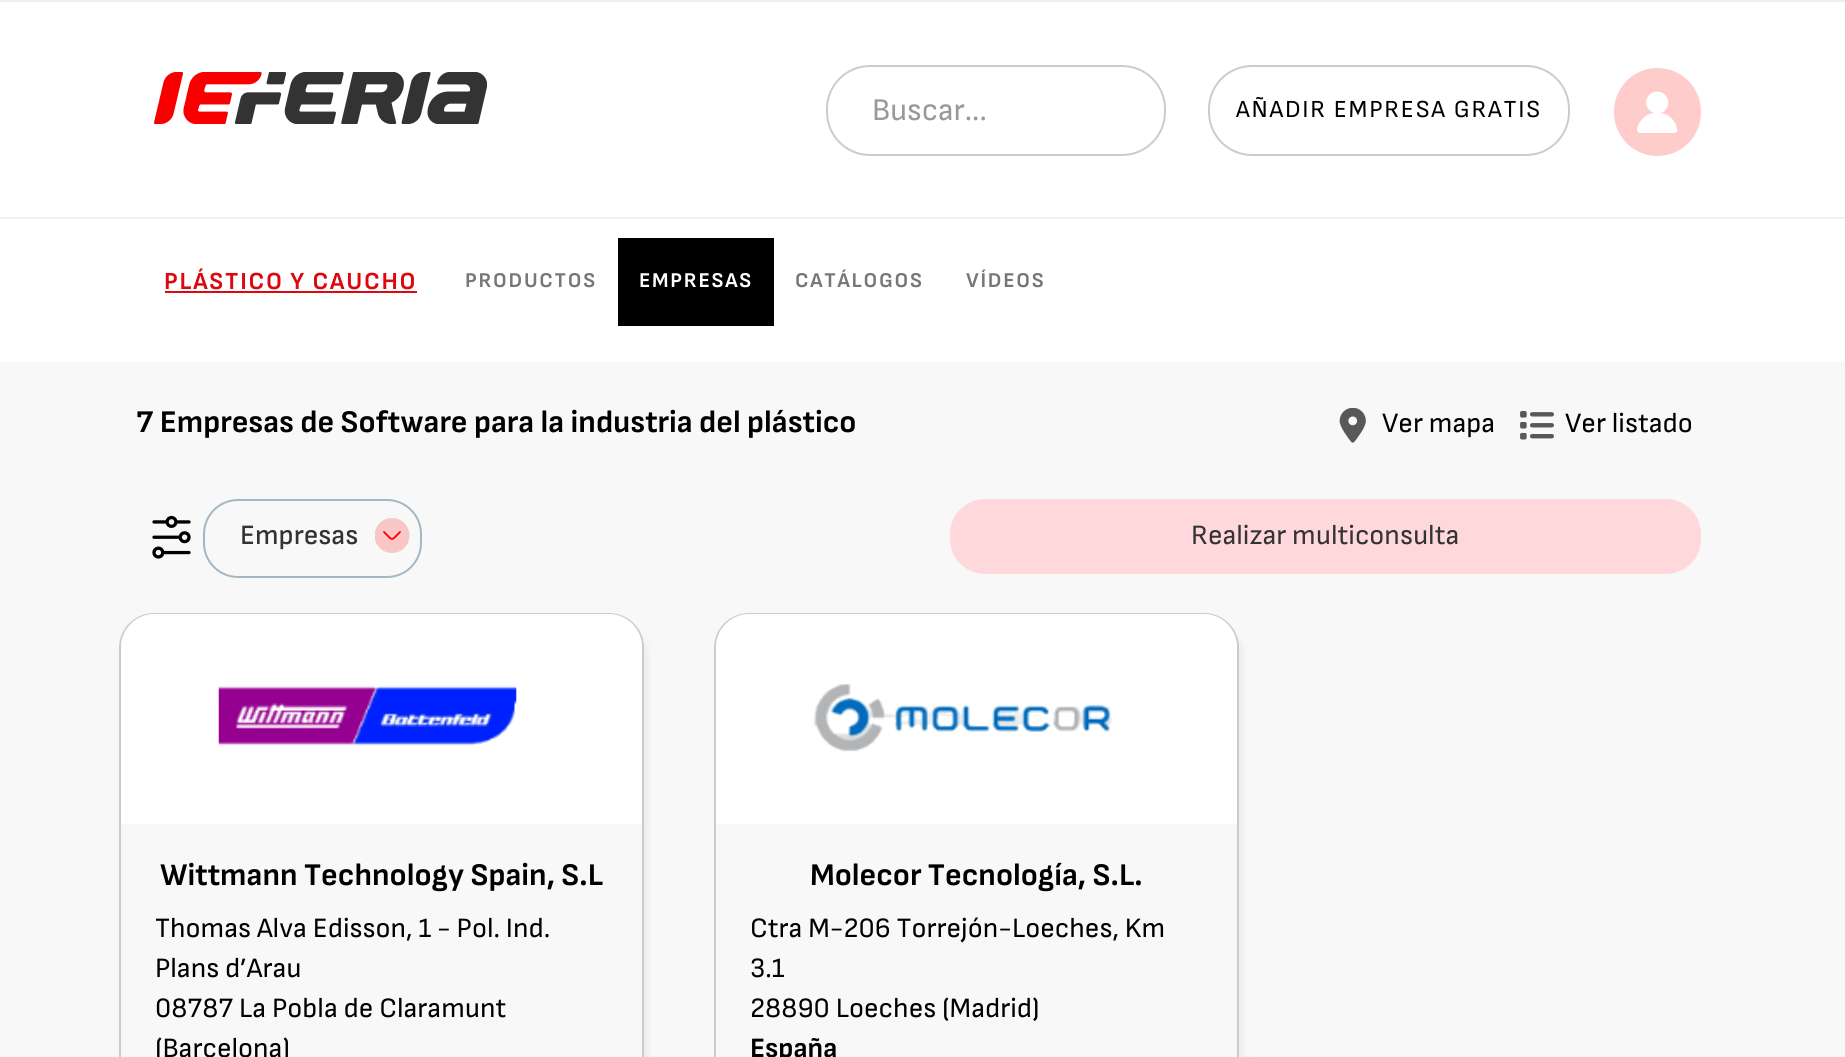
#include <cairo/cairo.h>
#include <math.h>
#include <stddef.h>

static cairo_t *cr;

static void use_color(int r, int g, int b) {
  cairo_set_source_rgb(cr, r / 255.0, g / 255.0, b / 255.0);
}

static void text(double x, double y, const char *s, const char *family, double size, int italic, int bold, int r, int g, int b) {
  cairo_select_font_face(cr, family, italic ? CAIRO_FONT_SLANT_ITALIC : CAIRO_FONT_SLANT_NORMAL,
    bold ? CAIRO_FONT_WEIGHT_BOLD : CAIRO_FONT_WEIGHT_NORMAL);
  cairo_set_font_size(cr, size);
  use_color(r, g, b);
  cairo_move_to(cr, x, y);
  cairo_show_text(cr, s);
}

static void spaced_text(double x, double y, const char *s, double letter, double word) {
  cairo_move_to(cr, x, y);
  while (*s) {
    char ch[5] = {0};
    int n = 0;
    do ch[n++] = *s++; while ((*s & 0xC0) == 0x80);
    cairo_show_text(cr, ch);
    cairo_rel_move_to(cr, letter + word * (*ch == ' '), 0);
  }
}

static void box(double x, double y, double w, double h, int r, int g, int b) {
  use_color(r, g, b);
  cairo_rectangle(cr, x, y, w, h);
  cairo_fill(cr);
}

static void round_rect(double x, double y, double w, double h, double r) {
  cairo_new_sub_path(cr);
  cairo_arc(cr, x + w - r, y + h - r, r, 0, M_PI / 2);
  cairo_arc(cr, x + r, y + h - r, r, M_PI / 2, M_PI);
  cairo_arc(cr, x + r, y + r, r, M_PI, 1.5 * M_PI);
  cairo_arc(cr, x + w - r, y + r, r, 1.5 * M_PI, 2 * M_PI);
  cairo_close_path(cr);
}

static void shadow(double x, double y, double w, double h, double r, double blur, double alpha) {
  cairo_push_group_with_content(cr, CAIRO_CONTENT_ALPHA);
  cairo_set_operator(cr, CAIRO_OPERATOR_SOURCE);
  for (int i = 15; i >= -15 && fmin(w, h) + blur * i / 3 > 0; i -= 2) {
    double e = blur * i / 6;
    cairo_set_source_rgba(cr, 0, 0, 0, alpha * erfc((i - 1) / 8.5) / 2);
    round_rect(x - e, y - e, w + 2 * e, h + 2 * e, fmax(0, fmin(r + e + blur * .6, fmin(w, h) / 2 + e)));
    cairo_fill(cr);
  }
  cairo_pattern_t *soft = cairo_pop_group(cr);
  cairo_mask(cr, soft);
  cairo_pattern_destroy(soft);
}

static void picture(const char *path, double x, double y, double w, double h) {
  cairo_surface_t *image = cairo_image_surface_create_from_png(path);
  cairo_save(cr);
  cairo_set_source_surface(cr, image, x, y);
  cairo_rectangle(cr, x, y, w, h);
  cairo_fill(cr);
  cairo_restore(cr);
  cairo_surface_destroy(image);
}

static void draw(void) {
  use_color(255, 255, 255);
  cairo_paint(cr);
  box(0, 0, 1845, 2, 236, 238, 240);
  picture("img_01.png", 154, 72, 333, 52);
  round_rect(827, 66, 338, 89, 43);
  use_color(204, 204, 204);
  cairo_stroke(cr);
  round_rect(1209, 66, 360, 89, 43);
  cairo_stroke(cr);
  use_color(255, 204, 204);
  round_rect(1614, 68, 87, 88, 43.5);
  cairo_fill(cr);
  use_color(255, 255, 255);
  cairo_new_path(cr);
  cairo_move_to(cr, 1661, 113);
  cairo_curve_to(cr, 1666, 111, 1669, 106, 1668, 100);
  cairo_curve_to(cr, 1667, 96, 1664, 93, 1660, 92);
  cairo_curve_to(cr, 1653, 90, 1646, 96, 1646, 102);
  cairo_curve_to(cr, 1646, 107, 1649, 111, 1654, 113);
  cairo_curve_to(cr, 1645, 114, 1639, 121, 1637, 129);
  cairo_curve_to(cr, 1637, 131, 1638, 133, 1640, 133);
  cairo_line_to(cr, 1674, 133);
  cairo_curve_to(cr, 1676, 133, 1678, 131, 1677, 129);
  cairo_curve_to(cr, 1676, 121, 1669, 114, 1661, 113);
  cairo_close_path(cr);
  cairo_fill(cr);
  box(0, 217, 1845, 2, 241, 241, 241);
  box(165, 291, 252, 2, 220, 7, 15);
  box(618, 238, 156, 88, 0, 0, 0);
  box(0, 362, 1845, 695, 248, 248, 248);
  picture("img_02.png", 1339, 408, 27, 35);
  picture("img_03.png", 1520, 411, 34, 29);
  picture("img_04.png", 152, 515, 39, 44);
  round_rect(204, 500, 217, 77, 34);
  use_color(163, 184, 193);
  cairo_stroke(cr);
  picture("img_05.png", 375, 518, 35, 35);
  use_color(255, 216, 219);
  round_rect(950, 499, 751, 75, 35);
  cairo_fill(cr);
  use_color(238, 238, 238);
  shadow(124, 621, 525, 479, 35, 2.5, 1);
  use_color(248, 248, 248);
  round_rect(120, 614, 523, 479, 34);
  cairo_fill_preserve(cr);
  use_color(202, 203, 203);
  cairo_stroke(cr);
  use_color(255, 255, 255);
  cairo_new_path(cr);
  cairo_move_to(cr, 154, 614);
  cairo_line_to(cr, 609, 614);
  cairo_curve_to(cr, 627, 614, 642, 629, 642, 647);
  cairo_line_to(cr, 642, 824);
  cairo_line_to(cr, 121, 824);
  cairo_line_to(cr, 121, 647);
  cairo_curve_to(cr, 121, 629, 136, 614, 154, 614);
  cairo_close_path(cr);
  cairo_fill(cr);
  picture("img_06.png", 218, 685, 299, 61);
  use_color(238, 238, 238);
  shadow(719, 621, 525, 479, 35, 2.5, 1);
  use_color(248, 248, 248);
  round_rect(715, 614, 523, 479, 34);
  cairo_fill_preserve(cr);
  use_color(202, 203, 203);
  cairo_stroke(cr);
  use_color(255, 255, 255);
  cairo_new_path(cr);
  cairo_move_to(cr, 749, 614);
  cairo_line_to(cr, 1204, 614);
  cairo_curve_to(cr, 1222, 614, 1237, 629, 1237, 647);
  cairo_line_to(cr, 1237, 824);
  cairo_line_to(cr, 716, 824);
  cairo_line_to(cr, 716, 647);
  cairo_curve_to(cr, 716, 629, 731, 614, 749, 614);
  cairo_close_path(cr);
  cairo_fill(cr);
  picture("img_07.png", 813, 684, 299, 68);
  text(872, 120, "Buscar...", "Sofia Sans", 31.5, 0, 0, 153, 153, 153);
  cairo_set_font_size(cr, 24.5);
  use_color(0, 0, 0);
  spaced_text(1236, 117, "AÑADIR EMPRESA GRATIS", 1.75, 0);
  cairo_select_font_face(cr, "Sofia Sans", CAIRO_FONT_SLANT_NORMAL, CAIRO_FONT_WEIGHT_BOLD);
  use_color(220, 7, 15);
  spaced_text(164, 289, "PLÁSTICO Y CAUCHO", 1.75, 0);
  cairo_set_font_size(cr, 21);
  use_color(119, 119, 119);
  spaced_text(465, 287, "PRODUCTOS", 1.75, 0);
  use_color(255, 255, 255);
  spaced_text(639, 287, "EMPRESAS", 1.75, 0);
  use_color(119, 119, 119);
  spaced_text(795, 287, "CATÁLOGOS", 1.75, 0);
  spaced_text(966, 287, "VÍDEOS", 1.75, 0);
  text(136, 432, "7 Empresas de Software para la industria del plástico", "Sofia Sans", 31.5, 0, 1, 0, 0, 0);
  text(1382, 432, "Ver mapa", "Sofia Sans", 28, 0, 0, 0, 0, 0);
  text(1565, 432, "Ver listado", "Sofia Sans", 28, 0, 0, 0, 0, 0);
  text(240, 544, "Empresas", "Sofia Sans Medium", 28, 0, 0, 51, 51, 51);
  text(1191, 544, "Realizar multiconsulta", "Sofia Sans", 28, 0, 0, 51, 51, 51);
  text(160, 885, "Wittmann Technology Spain, S.L", "Sofia Sans", 31.5, 0, 1, 0, 0, 0);
  text(155, 937, "Thomas Alva Edisson, 1 - Pol. Ind.", "Sofia Sans", 28, 0, 0, 0, 0, 0);
  text(155, 977, "Plans d’Arau", "Sofia Sans", 28, 0, 0, 0, 0, 0);
  text(155, 1017, "08787 La Pobla de Claramunt", "Sofia Sans", 28, 0, 0, 0, 0, 0);
  text(155, 1057, "(Barcelona)", "Sofia Sans", 28, 0, 0, 0, 0, 0);
  text(810, 885, "Molecor Tecnología, S.L.", "Sofia Sans", 31.5, 0, 1, 0, 0, 0);
  text(750, 937, "Ctra M-206 Torrejón-Loeches, Km", "Sofia Sans", 28, 0, 0, 0, 0, 0);
  text(750, 977, "3.1", "Sofia Sans", 28, 0, 0, 0, 0, 0);
  text(750, 1017, "28890 Loeches (Madrid)", "Sofia Sans", 28, 0, 0, 0, 0, 0);
  text(750, 1057, "España", "Sofia Sans", 28, 0, 1, 0, 0, 0);
}

int main(void) {
  cairo_surface_t *surface = cairo_image_surface_create(CAIRO_FORMAT_RGB24, 1845, 1057);
  cr = cairo_create(surface);
  cairo_font_options_t *options = cairo_font_options_create();
  cairo_font_options_set_hint_metrics(options, CAIRO_HINT_METRICS_OFF);
  cairo_font_options_set_hint_style(options, CAIRO_HINT_STYLE_NONE);
  cairo_set_font_options(cr, options);
  cairo_set_miter_limit(cr, 4);
  draw();
  cairo_surface_write_to_png(surface, "out.png");
  cairo_font_options_destroy(options);
  cairo_destroy(cr);
  cairo_surface_destroy(surface);
  return 0;
}
